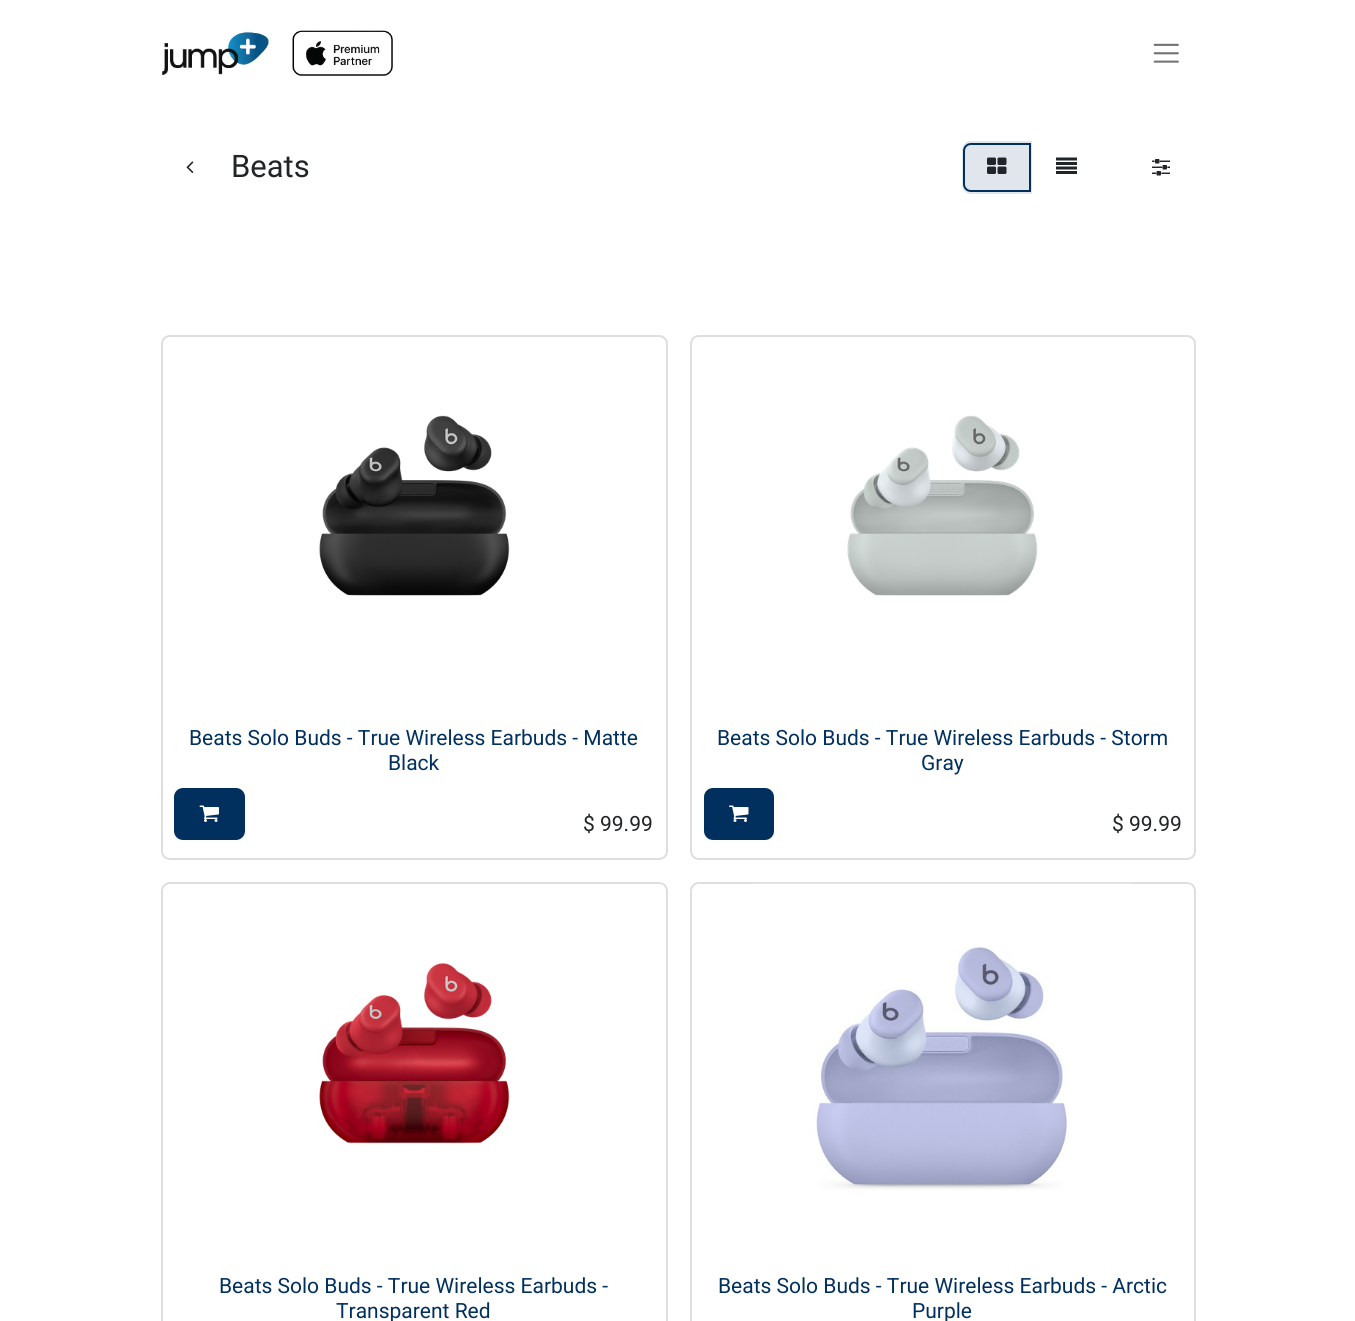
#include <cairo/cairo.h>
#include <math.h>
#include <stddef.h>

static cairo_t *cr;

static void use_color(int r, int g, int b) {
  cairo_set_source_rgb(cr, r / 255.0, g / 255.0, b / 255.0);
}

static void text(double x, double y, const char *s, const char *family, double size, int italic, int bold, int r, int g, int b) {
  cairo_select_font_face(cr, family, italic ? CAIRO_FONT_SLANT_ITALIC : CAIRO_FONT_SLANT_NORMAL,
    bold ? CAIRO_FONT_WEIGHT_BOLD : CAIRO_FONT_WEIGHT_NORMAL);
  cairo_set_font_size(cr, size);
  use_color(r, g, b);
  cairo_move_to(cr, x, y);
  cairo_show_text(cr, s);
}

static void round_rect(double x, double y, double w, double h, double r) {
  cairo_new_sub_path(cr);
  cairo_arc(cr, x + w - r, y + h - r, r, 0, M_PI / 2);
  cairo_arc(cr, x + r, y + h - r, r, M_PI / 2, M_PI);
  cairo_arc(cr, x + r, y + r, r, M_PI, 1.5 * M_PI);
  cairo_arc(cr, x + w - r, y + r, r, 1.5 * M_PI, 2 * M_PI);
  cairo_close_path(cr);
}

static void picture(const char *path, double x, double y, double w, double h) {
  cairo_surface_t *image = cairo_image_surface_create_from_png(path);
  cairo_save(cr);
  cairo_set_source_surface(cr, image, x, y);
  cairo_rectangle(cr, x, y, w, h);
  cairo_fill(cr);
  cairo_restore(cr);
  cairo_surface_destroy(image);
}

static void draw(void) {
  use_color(255, 255, 255);
  cairo_paint(cr);
  picture("img_01.png", 161, 30, 232, 46);
  picture("img_02.png", 1153, 43, 26, 20);
  picture("img_03.png", 186, 161, 8, 12);
  use_color(224, 230, 236);
  cairo_new_path(cr);
  cairo_move_to(cr, 971, 141);
  cairo_line_to(cr, 1032, 141);
  cairo_line_to(cr, 1032, 194);
  cairo_line_to(cr, 971, 194);
  cairo_curve_to(cr, 966, 194, 962, 190, 962, 185);
  cairo_line_to(cr, 962, 150);
  cairo_curve_to(cr, 962, 145, 966, 141, 971, 141);
  cairo_close_path(cr);
  cairo_fill(cr);
  cairo_new_path(cr);
  cairo_move_to(cr, 971, 144);
  cairo_line_to(cr, 1030, 144);
  cairo_line_to(cr, 1030, 191);
  cairo_line_to(cr, 971, 191);
  cairo_curve_to(cr, 967, 191, 964, 188, 964, 184);
  cairo_line_to(cr, 964, 151);
  cairo_curve_to(cr, 964, 147, 967, 144, 971, 144);
  cairo_close_path(cr);
  use_color(1, 48, 94);
  cairo_stroke(cr);
  picture("img_04.png", 987, 157, 20, 17);
  picture("img_05.png", 1056, 157, 21, 17);
  picture("img_06.png", 1152, 159, 18, 17);
  round_rect(162, 336, 505, 523, 8);
  use_color(222, 222, 223);
  cairo_stroke(cr);
  picture("img_07.png", 319, 415, 191, 181);
  use_color(1, 48, 94);
  round_rect(175, 789, 69, 50, 8);
  cairo_fill_preserve(cr);
  cairo_stroke(cr);
  picture("img_08.png", 199, 805, 20, 17);
  round_rect(691, 336, 504, 523, 8);
  use_color(222, 222, 223);
  cairo_stroke(cr);
  picture("img_09.png", 847, 415, 191, 181);
  use_color(1, 48, 94);
  round_rect(705, 789, 68, 50, 8);
  cairo_fill_preserve(cr);
  cairo_stroke(cr);
  picture("img_10.png", 729, 805, 20, 17);
  round_rect(162, 883, 505, 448, 8);
  use_color(222, 222, 223);
  cairo_stroke(cr);
  picture("img_11.png", 319, 963, 191, 181);
  round_rect(691, 883, 504, 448, 8);
  cairo_stroke(cr);
  picture("img_12.png", 753, 883, 378, 307);
  text(231, 177, "Beats", "Roboto", 31, 0, 0, 33, 37, 41);
  text(189, 745, "Beats Solo Buds - True Wireless Earbuds - Matte", "Roboto", 21, 0, 0, 1, 48, 94);
  text(388, 770, "Black", "Roboto", 21, 0, 0, 1, 48, 94);
  text(583, 831, "$ 99.99", "Roboto", 21, 0, 0, 33, 37, 41);
  text(717, 745, "Beats Solo Buds - True Wireless Earbuds - Storm", "Roboto", 21, 0, 0, 1, 48, 94);
  text(921, 770, "Gray", "Roboto", 21, 0, 0, 1, 48, 94);
  text(1112, 831, "$ 99.99", "Roboto", 21, 0, 0, 33, 37, 41);
  text(219, 1293, "Beats Solo Buds - True Wireless Earbuds -", "Roboto", 21, 0, 0, 1, 48, 94);
  text(336, 1318, "Transparent Red", "Roboto", 21, 0, 0, 1, 48, 94);
  text(718, 1293, "Beats Solo Buds - True Wireless Earbuds - Arctic", "Roboto", 21, 0, 0, 1, 48, 94);
  text(912, 1318, "Purple", "Roboto", 21, 0, 0, 1, 48, 94);
}

int main(void) {
  cairo_surface_t *surface = cairo_image_surface_create(CAIRO_FORMAT_RGB24, 1355, 1321);
  cr = cairo_create(surface);
  cairo_font_options_t *options = cairo_font_options_create();
  cairo_font_options_set_hint_metrics(options, CAIRO_HINT_METRICS_OFF);
  cairo_font_options_set_hint_style(options, CAIRO_HINT_STYLE_NONE);
  cairo_set_font_options(cr, options);
  cairo_set_miter_limit(cr, 4);
  draw();
  cairo_surface_write_to_png(surface, "out.png");
  cairo_font_options_destroy(options);
  cairo_destroy(cr);
  cairo_surface_destroy(surface);
  return 0;
}
